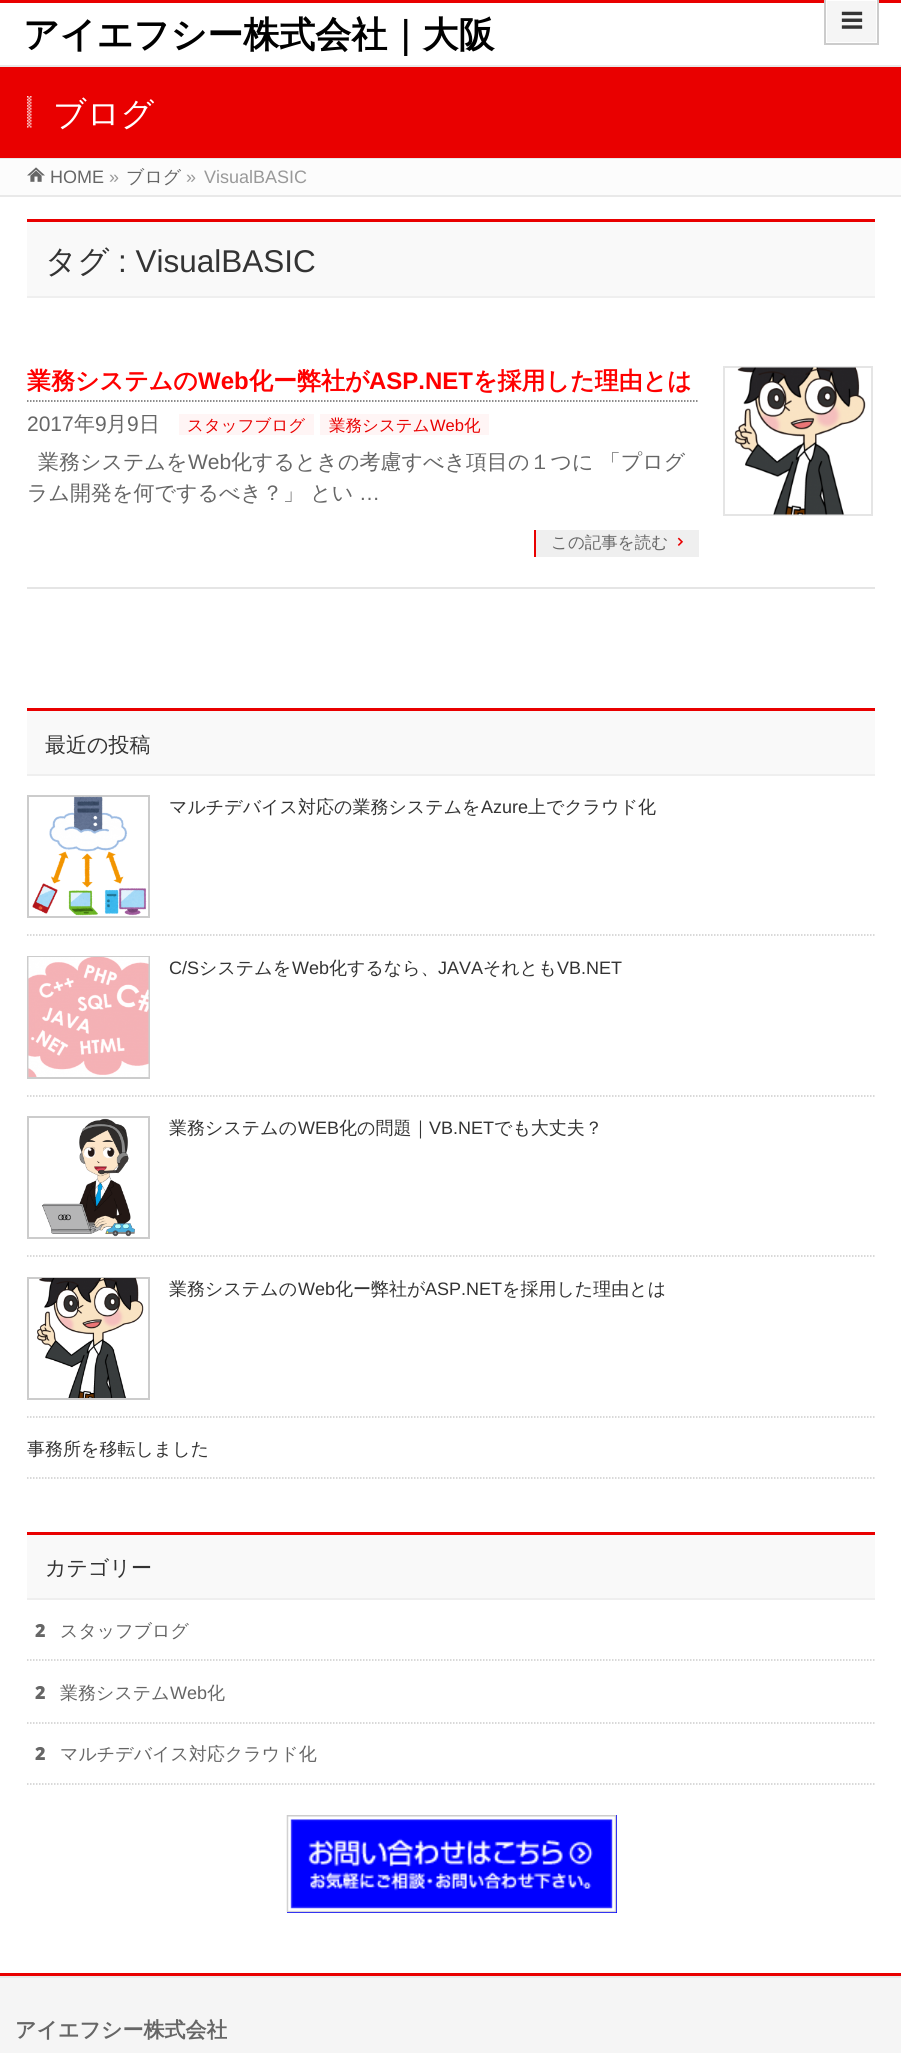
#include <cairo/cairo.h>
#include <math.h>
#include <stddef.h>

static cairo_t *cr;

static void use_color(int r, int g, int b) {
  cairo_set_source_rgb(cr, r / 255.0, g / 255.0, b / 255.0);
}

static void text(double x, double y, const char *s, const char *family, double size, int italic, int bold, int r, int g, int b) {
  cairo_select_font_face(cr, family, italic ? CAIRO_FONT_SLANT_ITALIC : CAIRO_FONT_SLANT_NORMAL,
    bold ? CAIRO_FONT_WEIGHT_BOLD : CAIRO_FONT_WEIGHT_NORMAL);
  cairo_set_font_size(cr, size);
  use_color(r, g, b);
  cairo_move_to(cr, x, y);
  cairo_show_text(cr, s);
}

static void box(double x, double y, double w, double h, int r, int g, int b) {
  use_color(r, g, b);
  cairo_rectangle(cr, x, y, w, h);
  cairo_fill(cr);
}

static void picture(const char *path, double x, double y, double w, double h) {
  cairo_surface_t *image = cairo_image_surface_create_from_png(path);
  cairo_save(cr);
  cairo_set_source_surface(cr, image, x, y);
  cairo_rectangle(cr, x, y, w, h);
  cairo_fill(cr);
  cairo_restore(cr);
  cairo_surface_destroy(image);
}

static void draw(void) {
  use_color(255, 255, 255);
  cairo_paint(cr);
  box(0, 0, 901, 3, 233, 0, 0);
  use_color(245, 245, 245);
  cairo_rectangle(cr, 826, 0, 51, 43);
  cairo_fill_preserve(cr);
  use_color(254, 254, 254);
  cairo_stroke(cr);
  cairo_rectangle(cr, 825, -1, 53, 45);
  use_color(204, 204, 204);
  cairo_stroke(cr);
  picture("img_01.png", 841, 11, 22, 18);
  box(0, 67, 901, 91, 233, 0, 0);
  box(0, 65, 901, 2, 233, 233, 233);
  box(0, 158, 901, 1, 233, 233, 233);
  picture("img_02.png", 27, 96, 5, 32);
  box(0, 159, 901, 36, 252, 252, 252);
  picture("img_03.png", 27, 167, 18, 15);
  box(0, 195, 901, 2, 233, 233, 233);
  box(27, 222, 848, 74, 249, 249, 249);
  box(27, 219, 848, 3, 233, 0, 0);
  box(27, 296, 848, 2, 239, 239, 239);
  box(27, 587, 848, 2, 229, 229, 229);
  cairo_new_path(cr);
  cairo_move_to(cr, 27, 401);
  cairo_line_to(cr, 699, 401);
  use_color(102, 102, 102);
  cairo_set_line_width(cr, 1.5);
  cairo_set_dash(cr, (double[]){1.5, 1.5}, 2, 0);
  cairo_stroke(cr);
  box(179, 414, 135, 21, 255, 245, 245);
  box(320, 414, 169, 21, 255, 245, 245);
  box(536, 530, 163, 27, 239, 239, 239);
  box(534, 530, 2, 27, 233, 0, 0);
  picture("img_04.png", 677, 537, 6, 9);
  cairo_rectangle(cr, 724, 367, 148, 148);
  use_color(229, 229, 229);
  cairo_set_line_width(cr, 2);
  cairo_set_dash(cr, NULL, 0, 0);
  cairo_stroke(cr);
  picture("img_05.png", 734, 367, 132, 148);
  box(27, 711, 848, 63, 249, 249, 249);
  box(27, 708, 848, 3, 233, 0, 0);
  box(27, 774, 848, 2, 239, 239, 239);
  cairo_new_path(cr);
  cairo_move_to(cr, 27, 935);
  cairo_line_to(cr, 874.5, 935);
  use_color(204, 204, 204);
  cairo_set_line_width(cr, 1.5);
  cairo_set_dash(cr, (double[]){1.5, 1.5}, 2, 0);
  cairo_stroke(cr);
  cairo_rectangle(cr, 28, 796, 121, 121);
  cairo_set_line_width(cr, 2);
  cairo_set_dash(cr, NULL, 0, 0);
  cairo_stroke(cr);
  picture("img_06.png", 32, 796, 115, 120);
  cairo_new_path(cr);
  cairo_move_to(cr, 27, 1096);
  cairo_line_to(cr, 874.5, 1096);
  cairo_set_line_width(cr, 1.5);
  cairo_set_dash(cr, (double[]){1.5, 1.5}, 2, 0);
  cairo_stroke(cr);
  cairo_rectangle(cr, 28, 957, 121, 121);
  cairo_set_line_width(cr, 2);
  cairo_set_dash(cr, NULL, 0, 0);
  cairo_stroke(cr);
  picture("img_07.png", 28, 957, 121, 120);
  cairo_new_path(cr);
  cairo_move_to(cr, 27, 1256);
  cairo_line_to(cr, 874.5, 1256);
  cairo_set_line_width(cr, 1.5);
  cairo_set_dash(cr, (double[]){1.5, 1.5}, 2, 0);
  cairo_stroke(cr);
  cairo_rectangle(cr, 28, 1117, 121, 121);
  cairo_set_line_width(cr, 2);
  cairo_set_dash(cr, NULL, 0, 0);
  cairo_stroke(cr);
  picture("img_08.png", 42, 1118, 93, 119);
  cairo_new_path(cr);
  cairo_move_to(cr, 27, 1417);
  cairo_line_to(cr, 874.5, 1417);
  cairo_set_line_width(cr, 1.5);
  cairo_set_dash(cr, (double[]){1.5, 1.5}, 2, 0);
  cairo_stroke(cr);
  cairo_rectangle(cr, 28, 1278, 121, 121);
  cairo_set_line_width(cr, 2);
  cairo_set_dash(cr, NULL, 0, 0);
  cairo_stroke(cr);
  picture("img_09.png", 37, 1278, 107, 120);
  cairo_new_path(cr);
  cairo_move_to(cr, 27, 1478);
  cairo_line_to(cr, 874.5, 1478);
  cairo_set_line_width(cr, 1.5);
  cairo_set_dash(cr, (double[]){1.5, 1.5}, 2, 0);
  cairo_stroke(cr);
  box(27, 1535, 848, 63, 249, 249, 249);
  box(27, 1532, 848, 3, 233, 0, 0);
  box(27, 1598, 848, 2, 239, 239, 239);
  cairo_new_path(cr);
  cairo_move_to(cr, 27, 1660);
  cairo_line_to(cr, 874.5, 1660);
  use_color(204, 204, 204);
  cairo_stroke(cr);
  cairo_new_path(cr);
  cairo_move_to(cr, 27, 1723);
  cairo_line_to(cr, 874.5, 1723);
  cairo_stroke(cr);
  cairo_new_path(cr);
  cairo_move_to(cr, 27, 1784);
  cairo_line_to(cr, 874.5, 1784);
  cairo_stroke(cr);
  box(287, 1815, 330, 98, 0, 0, 255);
  picture("img_10.png", 286, 1815, 331, 98);
  box(0, 1973, 901, 3, 233, 0, 0);
  box(0, 1976, 901, 2, 233, 233, 233);
  box(0, 1978, 901, 75, 245, 245, 245);
  text(23, 47, "アイエフシー株式会社｜大阪", "WenQuanYi Zen Hei", 36, 0, 1, 0, 0, 0);
  text(53, 125, "ブログ", "WenQuanYi Zen Hei Medium", 33, 0, 0, 255, 255, 255);
  text(50, 183, "HOME", "Liberation Sans", 18, 0, 0, 102, 102, 102);
  text(109, 183, "»", "Liberation Sans", 18, 0, 0, 153, 153, 153);
  text(126, 183, "ブログ", "WenQuanYi Zen Hei Medium", 18, 0, 0, 102, 102, 102);
  text(186, 183, "»", "Liberation Sans", 18, 0, 0, 153, 153, 153);
  text(204, 183, "VisualBASIC", "Liberation Sans", 18, 0, 0, 153, 153, 153);
  text(45, 272, "タグ", "WenQuanYi Zen Hei Medium", 31.5, 0, 0, 51, 51, 51);
  text(118, 272, ": VisualBASIC", "Liberation Sans", 31.5, 0, 0, 51, 51, 51);
  text(27, 389, "業務システムの", "WenQuanYi Zen Hei", 24, 0, 1, 255, 0, 0);
  text(198, 389, "Web", "Liberation Sans", 24, 0, 1, 255, 0, 0);
  text(249, 389, "化ー弊社が", "WenQuanYi Zen Hei", 24, 0, 1, 255, 0, 0);
  text(369, 389, "ASP.NET", "Liberation Sans", 24, 0, 1, 255, 0, 0);
  text(473, 389, "を採用した理由とは", "WenQuanYi Zen Hei", 24, 0, 1, 255, 0, 0);
  text(27, 431, "2017", "Liberation Sans", 21, 0, 0, 102, 102, 102);
  text(74, 431, "年", "WenQuanYi Zen Hei Medium", 21, 0, 0, 102, 102, 102);
  text(95, 431, "9", "Liberation Sans", 21, 0, 0, 102, 102, 102);
  text(106, 431, "月", "WenQuanYi Zen Hei Medium", 21, 0, 0, 102, 102, 102);
  text(127, 431, "9", "Liberation Sans", 21, 0, 0, 102, 102, 102);
  text(139, 431, "日", "WenQuanYi Zen Hei Medium", 21, 0, 0, 102, 102, 102);
  text(187, 431, "スタッフブログ", "WenQuanYi Zen Hei Medium", 16.5, 0, 0, 233, 0, 0);
  text(329, 431, "業務システム", "WenQuanYi Zen Hei Medium", 16.5, 0, 0, 233, 0, 0);
  text(430, 431, "Web", "Liberation Sans", 16.5, 0, 0, 233, 0, 0);
  text(464, 431, "化", "WenQuanYi Zen Hei Medium", 16.5, 0, 0, 233, 0, 0);
  text(38, 469, "業務システムを", "WenQuanYi Zen Hei Medium", 21, 0, 0, 102, 102, 102);
  text(188, 469, "Web", "Liberation Sans", 21, 0, 0, 102, 102, 102);
  text(231, 469, "化するときの考慮すべき項目の１つに 「プログ", "WenQuanYi Zen Hei Medium", 21, 0, 0, 102, 102, 102);
  text(27, 500, "ラム開発を何でするべき？」 とい", "WenQuanYi Zen Hei Medium", 21, 0, 0, 102, 102, 102);
  text(359, 500, "…", "Liberation Sans", 21, 0, 0, 102, 102, 102);
  text(551, 548, "この記事を読む", "WenQuanYi Zen Hei Medium", 16.5, 0, 0, 102, 102, 102);
  text(45, 752, "最近の投稿", "WenQuanYi Zen Hei Medium", 21, 0, 0, 51, 51, 51);
  text(169, 813, "マルチデバイス対応の業務システムを", "WenQuanYi Zen Hei Medium", 18, 0, 0, 51, 51, 51);
  text(481, 813, "Azure", "Liberation Sans", 18, 0, 0, 51, 51, 51);
  text(528, 813, "上でクラウド化", "WenQuanYi Zen Hei Medium", 18, 0, 0, 51, 51, 51);
  text(169, 974, "C/S", "Liberation Sans", 18, 0, 0, 51, 51, 51);
  text(199, 974, "システムを", "WenQuanYi Zen Hei Medium", 18, 0, 0, 51, 51, 51);
  text(292, 974, "Web", "Liberation Sans", 18, 0, 0, 51, 51, 51);
  text(329, 974, "化するなら、", "WenQuanYi Zen Hei Medium", 18, 0, 0, 51, 51, 51);
  text(438, 974, "JAVA", "Liberation Sans", 18, 0, 0, 51, 51, 51);
  text(483, 974, "それとも", "WenQuanYi Zen Hei Medium", 18, 0, 0, 51, 51, 51);
  text(557, 974, "VB.NET", "Liberation Sans", 18, 0, 0, 51, 51, 51);
  text(169, 1134, "業務システムの", "WenQuanYi Zen Hei Medium", 18, 0, 0, 51, 51, 51);
  text(298, 1134, "WEB", "Liberation Sans", 18, 0, 0, 51, 51, 51);
  text(339, 1134, "化の問題｜", "WenQuanYi Zen Hei Medium", 18, 0, 0, 51, 51, 51);
  text(429, 1134, "VB.NET", "Liberation Sans", 18, 0, 0, 51, 51, 51);
  text(494, 1134, "でも大丈夫？", "WenQuanYi Zen Hei Medium", 18, 0, 0, 51, 51, 51);
  text(169, 1295, "業務システムの", "WenQuanYi Zen Hei Medium", 18, 0, 0, 51, 51, 51);
  text(298, 1295, "Web", "Liberation Sans", 18, 0, 0, 51, 51, 51);
  text(335, 1295, "化ー弊社が", "WenQuanYi Zen Hei Medium", 18, 0, 0, 51, 51, 51);
  text(425, 1295, "ASP.NET", "Liberation Sans", 18, 0, 0, 51, 51, 51);
  text(502, 1295, "を採用した理由とは", "WenQuanYi Zen Hei Medium", 18, 0, 0, 51, 51, 51);
  text(27, 1455, "事務所を移転しました", "WenQuanYi Zen Hei Medium", 18, 0, 0, 51, 51, 51);
  text(45, 1575, "カテゴリー", "WenQuanYi Zen Hei Medium", 21, 0, 0, 51, 51, 51);
  text(35, 1637, "2", "Noto Sans Black", 18, 0, 0, 102, 102, 102);
  text(60, 1637, "スタッフブログ", "WenQuanYi Zen Hei Medium", 18, 0, 0, 102, 102, 102);
  text(35, 1699, "2", "Noto Sans Black", 18, 0, 0, 102, 102, 102);
  text(60, 1699, "業務システム", "WenQuanYi Zen Hei Medium", 18, 0, 0, 102, 102, 102);
  text(170, 1699, "Web", "Liberation Sans", 18, 0, 0, 102, 102, 102);
  text(207, 1699, "化", "WenQuanYi Zen Hei Medium", 18, 0, 0, 102, 102, 102);
  text(35, 1760, "2", "Noto Sans Black", 18, 0, 0, 102, 102, 102);
  text(60, 1760, "マルチデバイス対応クラウド化", "WenQuanYi Zen Hei Medium", 18, 0, 0, 102, 102, 102);
  text(15, 2037, "アイエフシー株式会社", "WenQuanYi Zen Hei", 21, 0, 1, 102, 102, 102);
}

int main(void) {
  cairo_surface_t *surface = cairo_image_surface_create(CAIRO_FORMAT_RGB24, 901, 2053);
  cr = cairo_create(surface);
  cairo_font_options_t *options = cairo_font_options_create();
  cairo_font_options_set_hint_metrics(options, CAIRO_HINT_METRICS_OFF);
  cairo_font_options_set_hint_style(options, CAIRO_HINT_STYLE_NONE);
  cairo_set_font_options(cr, options);
  cairo_set_miter_limit(cr, 4);
  draw();
  cairo_surface_write_to_png(surface, "out.png");
  cairo_font_options_destroy(options);
  cairo_destroy(cr);
  cairo_surface_destroy(surface);
  return 0;
}
